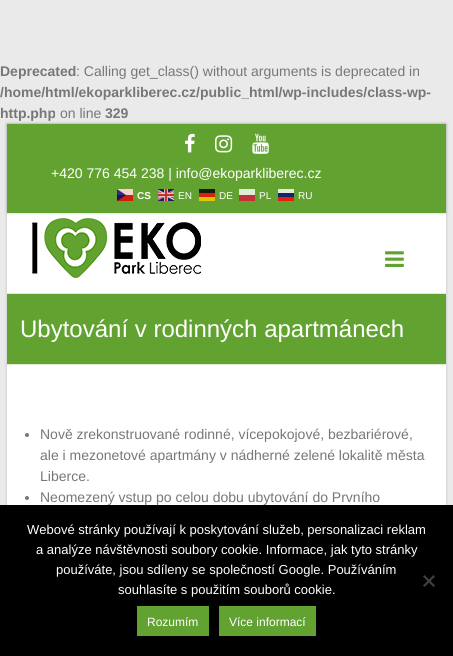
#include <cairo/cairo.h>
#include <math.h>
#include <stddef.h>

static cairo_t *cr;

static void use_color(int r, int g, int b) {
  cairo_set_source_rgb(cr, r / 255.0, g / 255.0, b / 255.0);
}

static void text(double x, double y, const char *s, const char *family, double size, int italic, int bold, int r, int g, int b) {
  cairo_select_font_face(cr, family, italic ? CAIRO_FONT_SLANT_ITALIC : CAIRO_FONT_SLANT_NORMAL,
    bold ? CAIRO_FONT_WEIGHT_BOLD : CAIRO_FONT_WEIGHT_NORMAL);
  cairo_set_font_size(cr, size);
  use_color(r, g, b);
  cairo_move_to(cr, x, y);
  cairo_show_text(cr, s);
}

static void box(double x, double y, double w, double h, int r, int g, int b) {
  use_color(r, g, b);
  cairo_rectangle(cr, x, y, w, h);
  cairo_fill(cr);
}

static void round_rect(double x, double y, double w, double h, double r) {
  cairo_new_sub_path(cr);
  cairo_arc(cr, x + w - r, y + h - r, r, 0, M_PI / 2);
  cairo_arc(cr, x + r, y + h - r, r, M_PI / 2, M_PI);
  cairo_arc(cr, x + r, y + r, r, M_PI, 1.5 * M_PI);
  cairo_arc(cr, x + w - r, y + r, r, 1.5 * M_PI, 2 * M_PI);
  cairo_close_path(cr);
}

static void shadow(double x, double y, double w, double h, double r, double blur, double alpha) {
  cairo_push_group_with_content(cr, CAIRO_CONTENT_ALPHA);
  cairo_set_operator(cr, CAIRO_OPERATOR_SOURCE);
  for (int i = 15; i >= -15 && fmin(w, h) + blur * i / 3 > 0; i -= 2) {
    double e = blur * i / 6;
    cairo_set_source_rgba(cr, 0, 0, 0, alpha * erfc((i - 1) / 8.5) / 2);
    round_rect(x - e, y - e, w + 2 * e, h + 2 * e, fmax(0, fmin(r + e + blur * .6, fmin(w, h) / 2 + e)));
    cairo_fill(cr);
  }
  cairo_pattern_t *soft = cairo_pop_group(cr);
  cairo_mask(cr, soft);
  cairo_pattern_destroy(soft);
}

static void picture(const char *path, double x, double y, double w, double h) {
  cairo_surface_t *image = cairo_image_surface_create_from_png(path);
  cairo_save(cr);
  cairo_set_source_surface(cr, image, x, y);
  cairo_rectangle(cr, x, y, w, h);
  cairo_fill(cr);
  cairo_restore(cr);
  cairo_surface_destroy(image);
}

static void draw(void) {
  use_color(234, 234, 234);
  cairo_paint(cr);
  use_color(0, 0, 0);
  shadow(7, 124, 439, 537, 0, 1.5, 0.2);
  box(7, 213, 439, 292, 255, 255, 255);
  picture("img_06.png", 32, 218, 169, 60);
  use_color(0, 0, 0);
  shadow(7, 124, 439, 89, 0, 1.5, 0.2);
  box(7, 124, 439, 89, 97, 162, 48);
  picture("img_01.png", 185, 133, 10, 20);
  picture("img_02.png", 215, 135, 18, 18);
  picture("img_03.png", 252, 133, 17, 21);
  picture("img_04.png", 117, 189, 16, 12);
  picture("img_05.png", 158, 189, 16, 12);
  box(199, 197, 16, 4, 223, 196, 10);
  box(199, 189, 16, 4, 19, 32, 10);
  box(199, 193, 16, 4, 223, 32, 10);
  box(239, 189, 16, 6, 223, 236, 214);
  box(239, 195, 16, 6, 195, 48, 58);
  box(278, 189, 16, 4, 223, 236, 214);
  box(278, 193, 16, 4, 20, 33, 110);
  box(278, 197, 16, 4, 223, 33, 10);
  picture("img_07.png", 385, 251, 19, 16);
  box(7, 294, 439, 70, 97, 162, 48);
  box(7, 293, 439, 1, 223, 236, 214);
  box(7, 364, 439, 1, 223, 236, 214);
  use_color(119, 119, 119);
  cairo_arc(cr, 27, 435, 2, 0, 2 * M_PI);
  cairo_fill(cr);
  cairo_arc(cr, 27, 498, 2, 0, 2 * M_PI);
  cairo_fill(cr);
  box(0, 505, 453, 151, 0, 0, 0);
  use_color(64, 64, 64);
  cairo_new_path(cr);
  cairo_move_to(cr, 433.5, 575);
  cairo_line_to(cr, 435, 576.5);
  cairo_line_to(cr, 424.5, 587);
  cairo_line_to(cr, 423, 585.5);
  cairo_close_path(cr);
  cairo_fill(cr);
  cairo_new_path(cr);
  cairo_move_to(cr, 423, 576.5);
  cairo_line_to(cr, 424.5, 575);
  cairo_line_to(cr, 435, 585.5);
  cairo_line_to(cr, 433.5, 587);
  cairo_close_path(cr);
  cairo_fill(cr);
  box(137, 606, 72, 30, 97, 162, 48);
  box(219, 606, 97, 30, 97, 162, 48);
  text(0, 76, "Deprecated", "Liberation Sans", 14, 0, 1, 119, 119, 119);
  text(76, 76, ": Calling get_class() without arguments is deprecated in", "Liberation Sans", 14, 0, 0, 119, 119, 119);
  text(0, 97, "/home/html/ekoparkliberec.cz/public_html/wp-includes/class-wp-", "Liberation Sans", 14, 0, 1, 119, 119, 119);
  text(0, 118, "http.php", "Liberation Sans", 14, 0, 1, 119, 119, 119);
  text(60, 118, "on line", "Liberation Sans", 14, 0, 0, 119, 119, 119);
  text(105, 118, "329", "Liberation Sans", 14, 0, 1, 119, 119, 119);
  text(51, 178, "+420 776 454 238 | info@ekoparkliberec.cz", "Liberation Sans", 14, 0, 0, 255, 255, 255);
  text(137, 199, "CS", "Liberation Sans", 10, 0, 1, 255, 255, 255);
  text(178, 199, "EN", "Liberation Sans", 10, 0, 0, 255, 255, 255);
  text(219, 199, "DE", "Liberation Sans", 10, 0, 0, 255, 255, 255);
  text(259, 199, "PL", "Liberation Sans", 10, 0, 0, 255, 255, 255);
  text(298, 199, "RU", "Liberation Sans", 10, 0, 0, 255, 255, 255);
  text(20, 337, "Ubytování v rodinných apartmánech", "Liberation Sans", 24, 0, 0, 255, 255, 255);
  text(40, 439, "Nově zrekonstruované rodinné, vícepokojové, bezbariérové,", "Liberation Sans", 14, 0, 0, 119, 119, 119);
  text(40, 460, "ale i mezonetové apartmány v nádherné zelené lokalitě města", "Liberation Sans", 14, 0, 0, 119, 119, 119);
  text(40, 481, "Liberce.", "Liberation Sans", 14, 0, 0, 119, 119, 119);
  text(40, 502, "Neomezený vstup po celou dobu ubytování do Prvního", "Liberation Sans", 14, 0, 0, 119, 119, 119);
  text(27, 534, "Webové stránky používají k poskytování služeb, personalizaci reklam", "Liberation Sans", 13, 0, 0, 255, 255, 255);
  text(36, 554, "a analýze návštěvnosti soubory cookie. Informace, jak tyto stránky", "Liberation Sans", 13, 0, 0, 255, 255, 255);
  text(56, 574, "používáte, jsou sdíleny se společností Google. Používáním", "Liberation Sans", 13, 0, 0, 255, 255, 255);
  text(118, 594, "souhlasíte s použitím souborů cookie.", "Liberation Sans", 13, 0, 0, 255, 255, 255);
  text(147, 626, "Rozumím", "Liberation Sans", 12, 0, 0, 255, 255, 255);
  text(229, 626, "Více informací", "Liberation Sans", 12, 0, 0, 255, 255, 255);
}

int main(void) {
  cairo_surface_t *surface = cairo_image_surface_create(CAIRO_FORMAT_RGB24, 453, 656);
  cr = cairo_create(surface);
  cairo_font_options_t *options = cairo_font_options_create();
  cairo_font_options_set_hint_metrics(options, CAIRO_HINT_METRICS_OFF);
  cairo_font_options_set_hint_style(options, CAIRO_HINT_STYLE_NONE);
  cairo_set_font_options(cr, options);
  cairo_set_miter_limit(cr, 4);
  draw();
  cairo_surface_write_to_png(surface, "out.png");
  cairo_font_options_destroy(options);
  cairo_destroy(cr);
  cairo_surface_destroy(surface);
  return 0;
}
